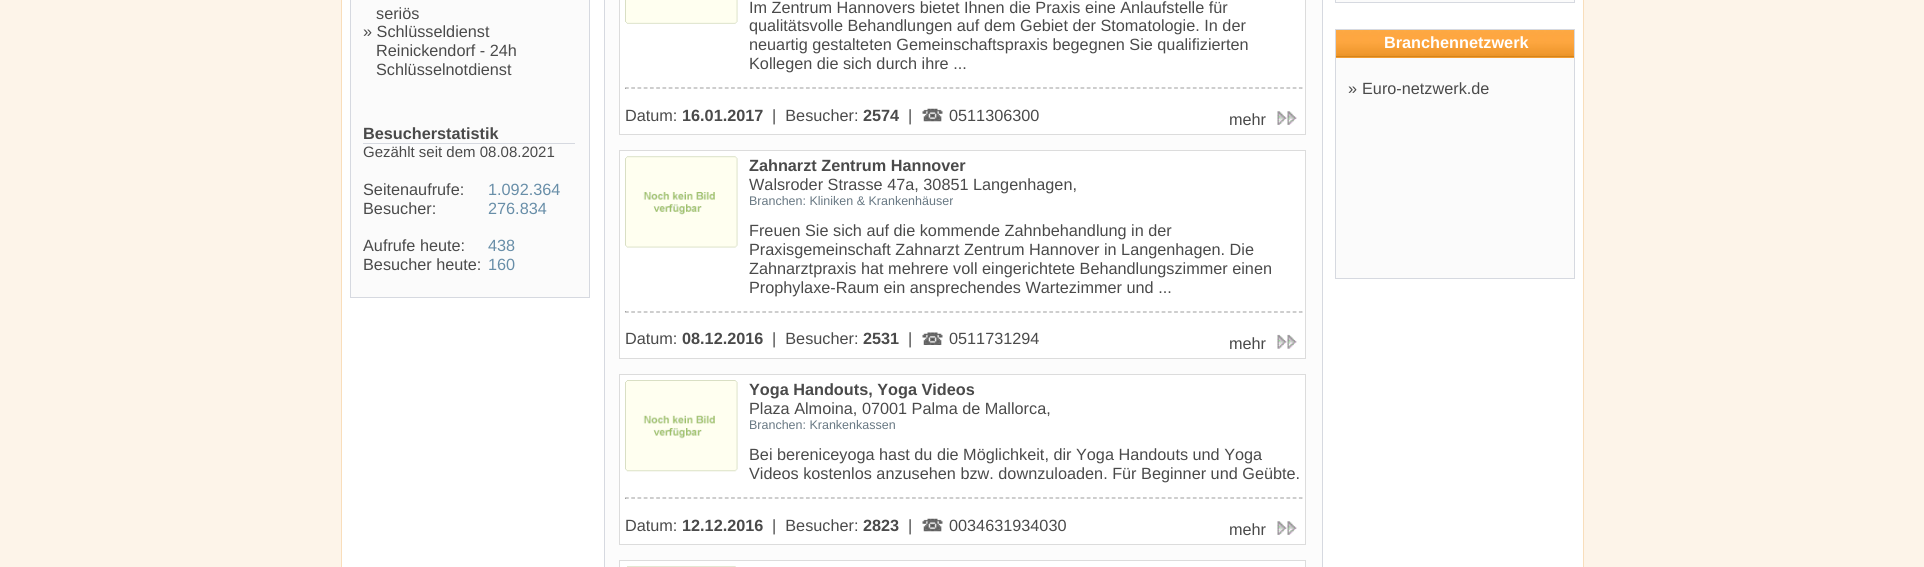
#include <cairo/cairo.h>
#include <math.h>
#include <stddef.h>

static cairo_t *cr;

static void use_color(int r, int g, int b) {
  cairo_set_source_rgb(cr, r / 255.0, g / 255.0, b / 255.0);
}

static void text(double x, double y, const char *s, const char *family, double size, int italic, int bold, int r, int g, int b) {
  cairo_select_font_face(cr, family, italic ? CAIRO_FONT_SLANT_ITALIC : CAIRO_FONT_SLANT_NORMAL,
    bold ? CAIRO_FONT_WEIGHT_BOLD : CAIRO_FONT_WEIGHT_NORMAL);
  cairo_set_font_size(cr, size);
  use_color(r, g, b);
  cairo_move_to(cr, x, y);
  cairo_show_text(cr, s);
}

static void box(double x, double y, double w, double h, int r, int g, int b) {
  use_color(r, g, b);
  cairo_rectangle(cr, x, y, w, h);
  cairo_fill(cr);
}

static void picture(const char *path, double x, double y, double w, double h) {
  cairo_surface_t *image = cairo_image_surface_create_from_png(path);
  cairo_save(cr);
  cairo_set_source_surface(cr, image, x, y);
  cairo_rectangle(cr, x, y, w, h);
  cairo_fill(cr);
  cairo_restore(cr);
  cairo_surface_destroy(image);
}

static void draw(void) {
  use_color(253, 244, 233);
  cairo_paint(cr);
  use_color(255, 255, 255);
  cairo_rectangle(cr, 341.5, -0.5, 1242, 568);
  cairo_fill_preserve(cr);
  use_color(249, 222, 187);
  cairo_set_line_width(cr, 1);
  cairo_stroke(cr);
  use_color(251, 251, 251);
  cairo_rectangle(cr, 350.5, -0.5, 239, 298);
  cairo_fill_preserve(cr);
  use_color(214, 217, 224);
  cairo_stroke(cr);
  box(363, 143, 212, 1, 214, 217, 224);
  use_color(252, 252, 252);
  cairo_rectangle(cr, 604.5, -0.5, 718, 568);
  cairo_fill_preserve(cr);
  use_color(214, 217, 224);
  cairo_stroke(cr);
  use_color(255, 255, 255);
  cairo_rectangle(cr, 619.5, -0.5, 686, 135);
  cairo_fill_preserve(cr);
  use_color(220, 220, 220);
  cairo_stroke(cr);
  picture("img_01.png", 625, 0, 113, 24);
  box(1301, 88, 1, 1, 238, 238, 238);
  cairo_new_path(cr);
  cairo_move_to(cr, 625, 88);
  cairo_line_to(cr, 1302.5, 88);
  use_color(174, 174, 174);
  cairo_set_line_width(cr, 1.2);
  cairo_set_dash(cr, (double[]){3.75, 2.49}, 2, 0);
  cairo_stroke(cr);
  box(625, 88, 1, 1, 159, 159, 159);
  picture("img_02.png", 922, 108, 21, 14);
  picture("img_03.png", 1277, 111, 20, 14);
  use_color(255, 255, 255);
  cairo_rectangle(cr, 619.5, 150.5, 686, 208);
  cairo_fill_preserve(cr);
  use_color(220, 220, 220);
  cairo_set_line_width(cr, 1);
  cairo_set_dash(cr, NULL, 0, 0);
  cairo_stroke(cr);
  picture("img_04.png", 625, 156, 113, 92);
  box(1301, 311, 1, 1, 238, 238, 238);
  cairo_new_path(cr);
  cairo_move_to(cr, 625, 312);
  cairo_line_to(cr, 1302.5, 312);
  use_color(174, 174, 174);
  cairo_set_line_width(cr, 1.2);
  cairo_set_dash(cr, (double[]){3.75, 2.49}, 2, 0);
  cairo_stroke(cr);
  box(625, 311, 1, 1, 159, 159, 159);
  picture("img_05.png", 922, 332, 21, 13);
  picture("img_06.png", 1277, 334, 20, 15);
  use_color(255, 255, 255);
  cairo_rectangle(cr, 619.5, 374.5, 686, 170);
  cairo_fill_preserve(cr);
  use_color(220, 220, 220);
  cairo_set_line_width(cr, 1);
  cairo_set_dash(cr, NULL, 0, 0);
  cairo_stroke(cr);
  picture("img_07.png", 625, 380, 113, 92);
  box(1301, 498, 1, 1, 238, 238, 238);
  cairo_new_path(cr);
  cairo_move_to(cr, 625, 498);
  cairo_line_to(cr, 1302.5, 498);
  use_color(174, 174, 174);
  cairo_set_line_width(cr, 1.2);
  cairo_set_dash(cr, (double[]){3.75, 2.49}, 2, 0);
  cairo_stroke(cr);
  box(625, 498, 1, 1, 159, 159, 159);
  picture("img_02.png", 922, 518, 21, 14);
  picture("img_03.png", 1277, 521, 20, 14);
  use_color(255, 255, 255);
  cairo_rectangle(cr, 619.5, 560.5, 686, 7);
  cairo_fill_preserve(cr);
  use_color(220, 220, 220);
  cairo_set_line_width(cr, 1);
  cairo_set_dash(cr, NULL, 0, 0);
  cairo_stroke(cr);
  picture("img_08.png", 627, 566, 109, 1);
  use_color(251, 251, 251);
  cairo_rectangle(cr, 1335.5, -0.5, 239, 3);
  cairo_fill_preserve(cr);
  use_color(214, 217, 224);
  cairo_stroke(cr);
  box(1336, 58, 238, 220, 251, 251, 251);
  cairo_rectangle(cr, 1335.5, 29.5, 239, 249);
  use_color(214, 217, 224);
  cairo_stroke(cr);
  box(1336, 30, 238, 28, 253, 166, 63);
  picture("img_09.png", 1336, 30, 238, 28);
  box(1336, 56, 238, 1, 212, 132, 27);
  text(376, 19, "seriös", "Liberation Sans", 16.25, 0, 0, 74, 74, 74);
  text(363, 37, "» Schlüsseldienst", "Liberation Sans", 16.25, 0, 0, 74, 74, 74);
  text(376, 56, "Reinickendorf - 24h", "Liberation Sans", 16.25, 0, 0, 74, 74, 74);
  text(376, 75, "Schlüsselnotdienst", "Liberation Sans", 16.25, 0, 0, 74, 74, 74);
  text(363, 139, "Besucherstatistik", "Liberation Sans", 16.25, 0, 1, 74, 74, 74);
  text(363, 157, "Gezählt seit dem 08.08.2021", "Liberation Sans", 15, 0, 0, 74, 74, 74);
  text(363, 195, "Seitenaufrufe:", "Liberation Sans", 16.25, 0, 0, 74, 74, 74);
  text(363, 214, "Besucher:", "Liberation Sans", 16.25, 0, 0, 74, 74, 74);
  text(363, 251, "Aufrufe heute:", "Liberation Sans", 16.25, 0, 0, 74, 74, 74);
  text(363, 270, "Besucher heute:", "Liberation Sans", 16.25, 0, 0, 74, 74, 74);
  text(488, 195, "1.092.364", "Liberation Sans", 16.25, 0, 0, 104, 142, 168);
  text(488, 214, "276.834", "Liberation Sans", 16.25, 0, 0, 104, 142, 168);
  text(488, 251, "438", "Liberation Sans", 16.25, 0, 0, 104, 142, 168);
  text(488, 270, "160", "Liberation Sans", 16.25, 0, 0, 104, 142, 168);
  text(749, 13, "Im Zentrum Hannovers bietet Ihnen die Praxis eine Anlaufstelle für", "Liberation Sans", 16.25, 0, 0, 74, 74, 74);
  text(749, 31, "qualitätsvolle Behandlungen auf dem Gebiet der Stomatologie. In der", "Liberation Sans", 16.25, 0, 0, 74, 74, 74);
  text(749, 50, "neuartig gestalteten Gemeinschaftspraxis begegnen Sie qualifizierten", "Liberation Sans", 16.25, 0, 0, 74, 74, 74);
  text(749, 69, "Kollegen die sich durch ihre ...", "Liberation Sans", 16.25, 0, 0, 74, 74, 74);
  text(625, 121, "Datum:", "Liberation Sans", 16.25, 0, 0, 74, 74, 74);
  text(682, 121, "16.01.2017", "Liberation Sans", 16.25, 0, 1, 74, 74, 74);
  text(772, 121, "|  Besucher:", "Liberation Sans", 16.25, 0, 0, 74, 74, 74);
  text(863, 121, "2574", "Liberation Sans", 16.25, 0, 1, 74, 74, 74);
  text(908, 121, "|", "Liberation Sans", 16.25, 0, 0, 74, 74, 74);
  text(949, 121, "0511306300", "Liberation Sans", 16.25, 0, 0, 74, 74, 74);
  text(1229, 125, "mehr", "Liberation Sans", 16.25, 0, 0, 74, 74, 74);
  text(749, 171, "Zahnarzt Zentrum Hannover", "Liberation Sans", 16.25, 0, 1, 74, 74, 74);
  text(749, 190, "Walsroder Strasse 47a, 30851 Langenhagen,", "Liberation Sans", 16.25, 0, 0, 74, 74, 74);
  text(749, 205, "Branchen: Kliniken & Krankenhäuser", "Liberation Sans", 12.5, 0, 0, 104, 120, 131);
  text(749, 236, "Freuen Sie sich auf die kommende Zahnbehandlung in der", "Liberation Sans", 16.25, 0, 0, 74, 74, 74);
  text(749, 255, "Praxisgemeinschaft Zahnarzt Zentrum Hannover in Langenhagen. Die", "Liberation Sans", 16.25, 0, 0, 74, 74, 74);
  text(749, 274, "Zahnarztpraxis hat mehrere voll eingerichtete Behandlungszimmer einen", "Liberation Sans", 16.25, 0, 0, 74, 74, 74);
  text(749, 293, "Prophylaxe-Raum ein ansprechendes Wartezimmer und ...", "Liberation Sans", 16.25, 0, 0, 74, 74, 74);
  text(625, 344, "Datum:", "Liberation Sans", 16.25, 0, 0, 74, 74, 74);
  text(682, 344, "08.12.2016", "Liberation Sans", 16.25, 0, 1, 74, 74, 74);
  text(772, 344, "|  Besucher:", "Liberation Sans", 16.25, 0, 0, 74, 74, 74);
  text(863, 344, "2531", "Liberation Sans", 16.25, 0, 1, 74, 74, 74);
  text(908, 344, "|", "Liberation Sans", 16.25, 0, 0, 74, 74, 74);
  text(949, 344, "0511731294", "Liberation Sans", 16.25, 0, 0, 74, 74, 74);
  text(1229, 349, "mehr", "Liberation Sans", 16.25, 0, 0, 74, 74, 74);
  text(749, 395, "Yoga Handouts, Yoga Videos", "Liberation Sans", 16.25, 0, 1, 74, 74, 74);
  text(749, 414, "Plaza Almoina, 07001 Palma de Mallorca,", "Liberation Sans", 16.25, 0, 0, 74, 74, 74);
  text(749, 429, "Branchen: Krankenkassen", "Liberation Sans", 12.5, 0, 0, 104, 120, 131);
  text(749, 460, "Bei bereniceyoga hast du die Möglichkeit, dir Yoga Handouts und Yoga", "Liberation Sans", 16.25, 0, 0, 74, 74, 74);
  text(749, 479, "Videos kostenlos anzusehen bzw. downzuloaden. Für Beginner und Geübte.", "Liberation Sans", 16.25, 0, 0, 74, 74, 74);
  text(625, 531, "Datum:", "Liberation Sans", 16.25, 0, 0, 74, 74, 74);
  text(682, 531, "12.12.2016", "Liberation Sans", 16.25, 0, 1, 74, 74, 74);
  text(772, 531, "|  Besucher:", "Liberation Sans", 16.25, 0, 0, 74, 74, 74);
  text(863, 531, "2823", "Liberation Sans", 16.25, 0, 1, 74, 74, 74);
  text(908, 531, "|", "Liberation Sans", 16.25, 0, 0, 74, 74, 74);
  text(949, 531, "0034631934030", "Liberation Sans", 16.25, 0, 0, 74, 74, 74);
  text(1229, 535, "mehr", "Liberation Sans", 16.25, 0, 0, 74, 74, 74);
  text(1384, 48, "Branchennetzwerk", "Liberation Sans", 16.25, 0, 1, 255, 255, 255);
  text(1348, 94, "»", "Liberation Sans", 16.25, 0, 0, 74, 74, 74);
  text(1362, 94, "Euro-netzwerk.de", "Liberation Sans", 16.25, 0, 0, 74, 74, 74);
}

int main(void) {
  cairo_surface_t *surface = cairo_image_surface_create(CAIRO_FORMAT_RGB24, 1924, 567);
  cr = cairo_create(surface);
  cairo_font_options_t *options = cairo_font_options_create();
  cairo_font_options_set_hint_metrics(options, CAIRO_HINT_METRICS_OFF);
  cairo_font_options_set_hint_style(options, CAIRO_HINT_STYLE_NONE);
  cairo_set_font_options(cr, options);
  cairo_set_miter_limit(cr, 4);
  draw();
  cairo_surface_write_to_png(surface, "out.png");
  cairo_font_options_destroy(options);
  cairo_destroy(cr);
  cairo_surface_destroy(surface);
  return 0;
}
